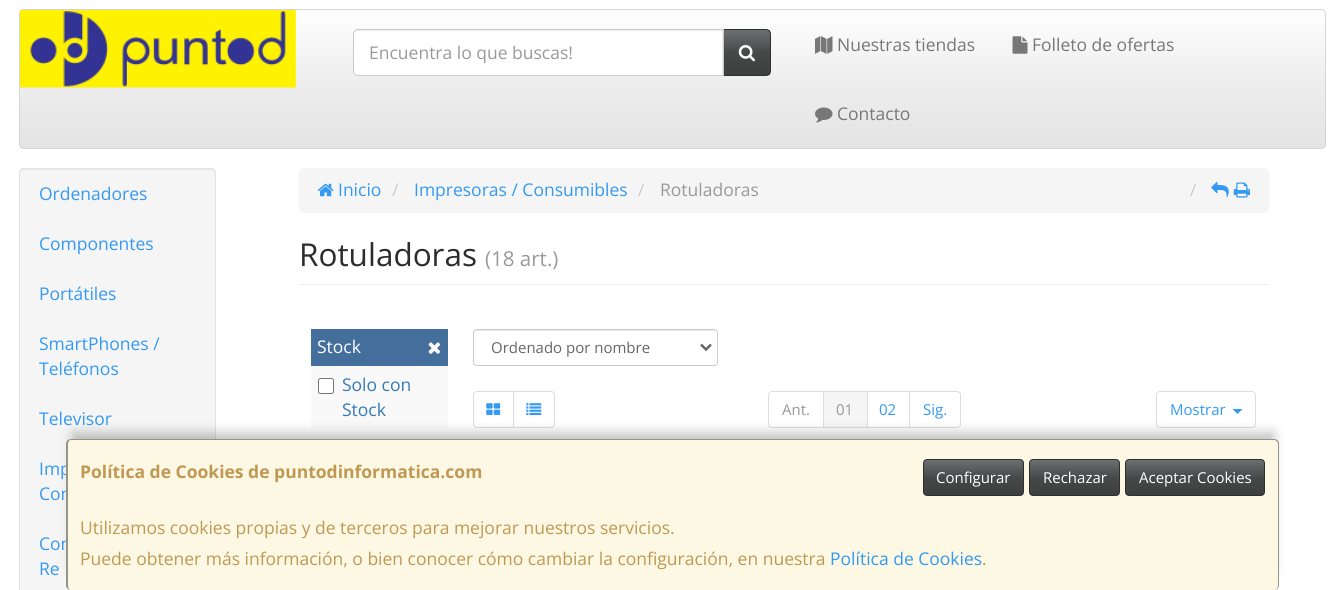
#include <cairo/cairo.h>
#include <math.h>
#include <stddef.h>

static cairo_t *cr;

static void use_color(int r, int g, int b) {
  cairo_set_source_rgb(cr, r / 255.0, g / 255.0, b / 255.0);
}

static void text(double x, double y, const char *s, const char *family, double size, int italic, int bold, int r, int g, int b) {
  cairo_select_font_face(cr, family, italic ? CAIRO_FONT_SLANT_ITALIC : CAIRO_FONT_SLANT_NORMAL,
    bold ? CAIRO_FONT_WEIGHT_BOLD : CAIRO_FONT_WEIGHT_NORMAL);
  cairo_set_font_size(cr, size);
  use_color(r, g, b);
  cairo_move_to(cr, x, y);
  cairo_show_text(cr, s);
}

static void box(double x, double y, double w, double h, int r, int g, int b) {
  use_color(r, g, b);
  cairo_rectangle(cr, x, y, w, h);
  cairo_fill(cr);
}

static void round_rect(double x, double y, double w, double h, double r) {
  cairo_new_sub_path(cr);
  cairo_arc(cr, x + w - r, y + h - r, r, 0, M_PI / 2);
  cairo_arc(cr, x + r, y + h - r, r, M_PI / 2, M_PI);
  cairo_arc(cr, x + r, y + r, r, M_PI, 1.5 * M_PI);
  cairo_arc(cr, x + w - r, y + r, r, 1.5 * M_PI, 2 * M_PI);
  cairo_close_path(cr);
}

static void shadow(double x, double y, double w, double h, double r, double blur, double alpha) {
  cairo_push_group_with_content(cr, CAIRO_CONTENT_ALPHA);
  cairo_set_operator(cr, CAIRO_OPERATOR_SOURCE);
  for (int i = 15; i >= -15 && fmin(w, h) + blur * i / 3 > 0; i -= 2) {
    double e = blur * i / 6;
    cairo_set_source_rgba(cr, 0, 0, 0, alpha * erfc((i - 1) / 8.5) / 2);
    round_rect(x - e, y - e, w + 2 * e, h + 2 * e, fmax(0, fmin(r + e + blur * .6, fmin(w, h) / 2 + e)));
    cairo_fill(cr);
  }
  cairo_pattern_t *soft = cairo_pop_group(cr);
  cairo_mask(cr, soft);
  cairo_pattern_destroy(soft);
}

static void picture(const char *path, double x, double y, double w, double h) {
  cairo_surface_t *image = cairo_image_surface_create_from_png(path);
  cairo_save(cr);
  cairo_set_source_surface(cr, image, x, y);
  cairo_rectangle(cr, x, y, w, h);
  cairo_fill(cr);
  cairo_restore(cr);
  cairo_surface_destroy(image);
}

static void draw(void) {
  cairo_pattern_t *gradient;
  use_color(255, 255, 255);
  cairo_paint(cr);
  cairo_save(cr);
  round_rect(19, 9, 1307, 140, 5);
  cairo_clip(cr);
  gradient = cairo_pattern_create_linear(673, 10, 673, 148);
  cairo_pattern_add_color_stop_rgba(gradient, 0, 1, 1, 1, 1);
  cairo_pattern_add_color_stop_rgba(gradient, 0.5, 0.933, 0.933, 0.933, 1);
  cairo_pattern_add_color_stop_rgba(gradient, 1, 0.894, 0.894, 0.894, 1);
  cairo_set_source(cr, gradient);
  cairo_pattern_destroy(gradient);
  cairo_rectangle(cr, 20, 10, 1305, 138);
  cairo_fill(cr);
  cairo_restore(cr);
  round_rect(19.5, 9.5, 1306, 139, 4.5);
  use_color(213, 213, 213);
  cairo_set_line_width(cr, 1);
  cairo_stroke(cr);
  picture("img_01.png", 20, 10, 276, 78);
  gradient = cairo_pattern_create_linear(747, 30, 747, 75);
  cairo_pattern_add_color_stop_rgba(gradient, 0, 0.427, 0.439, 0.439, 1);
  cairo_pattern_add_color_stop_rgba(gradient, 0.5, 0.278, 0.286, 0.286, 1);
  cairo_pattern_add_color_stop_rgba(gradient, 1, 0.239, 0.247, 0.247, 1);
  cairo_set_source(cr, gradient);
  cairo_pattern_destroy(gradient);
  cairo_rectangle(cr, 724, 30, 46, 45);
  cairo_fill(cr);
  cairo_new_path(cr);
  cairo_move_to(cr, 723.5, 29.5);
  cairo_line_to(cr, 766, 29.5);
  cairo_curve_to(cr, 768.5, 29.5, 770.5, 31.5, 770.5, 34);
  cairo_line_to(cr, 770.5, 71);
  cairo_curve_to(cr, 770.5, 73.5, 768.5, 75.5, 766, 75.5);
  cairo_line_to(cr, 723.5, 75.5);
  cairo_close_path(cr);
  use_color(46, 47, 47);
  cairo_stroke(cr);
  use_color(255, 255, 255);
  cairo_new_path(cr);
  cairo_move_to(cr, 358, 29);
  cairo_line_to(cr, 724, 29);
  cairo_line_to(cr, 724, 76);
  cairo_line_to(cr, 358, 76);
  cairo_curve_to(cr, 355, 76, 353, 74, 353, 71);
  cairo_line_to(cr, 353, 34);
  cairo_curve_to(cr, 353, 31, 355, 29, 358, 29);
  cairo_close_path(cr);
  cairo_fill(cr);
  use_color(236, 236, 236);
  cairo_new_path(cr);
  cairo_move_to(cr, 358, 31);
  cairo_line_to(cr, 722, 31);
  cairo_line_to(cr, 722, 75);
  cairo_line_to(cr, 723, 75);
  cairo_line_to(cr, 723, 30);
  cairo_line_to(cr, 358, 30);
  cairo_curve_to(cr, 355, 30, 354, 32, 354, 35);
  cairo_curve_to(cr, 354, 33, 355, 31, 358, 31);
  cairo_close_path(cr);
  cairo_fill(cr);
  cairo_new_path(cr);
  cairo_move_to(cr, 358, 29.5);
  cairo_line_to(cr, 723.5, 29.5);
  cairo_line_to(cr, 723.5, 75.5);
  cairo_line_to(cr, 358, 75.5);
  cairo_curve_to(cr, 355.5, 75.5, 353.5, 73.5, 353.5, 71);
  cairo_line_to(cr, 353.5, 34);
  cairo_curve_to(cr, 353.5, 31.5, 355.5, 29.5, 358, 29.5);
  cairo_close_path(cr);
  use_color(204, 204, 204);
  cairo_stroke(cr);
  picture("img_02.png", 738, 45, 17, 17);
  picture("img_03.png", 815, 36, 18, 18);
  picture("img_04.png", 1012, 36, 16, 18);
  picture("img_05.png", 815, 107, 18, 16);
  use_color(245, 245, 245);
  round_rect(19, 168, 197, 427, 5);
  cairo_fill(cr);
  use_color(233, 233, 233);
  cairo_new_path(cr);
  cairo_move_to(cr, 24, 170);
  cairo_line_to(cr, 211, 170);
  cairo_curve_to(cr, 213, 170, 215, 172, 215, 174);
  cairo_line_to(cr, 215, 173);
  cairo_curve_to(cr, 215, 171, 213, 169, 211, 169);
  cairo_line_to(cr, 24, 169);
  cairo_curve_to(cr, 22, 169, 20, 171, 20, 173);
  cairo_line_to(cr, 20, 174);
  cairo_curve_to(cr, 20, 172, 22, 170, 24, 170);
  cairo_close_path(cr);
  cairo_fill(cr);
  round_rect(19.5, 168.5, 196, 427, 4.5);
  use_color(227, 227, 227);
  cairo_stroke(cr);
  use_color(245, 245, 245);
  round_rect(299, 168, 970, 45, 5);
  cairo_fill(cr);
  picture("img_06.png", 317, 183, 17, 14);
  picture("img_07.png", 1211, 181, 18, 17);
  picture("img_08.png", 1233, 182, 17, 16);
  box(299, 284, 970, 1, 238, 238, 238);
  box(311, 329, 137, 37, 68, 110, 155);
  picture("img_09.png", 428, 342, 13, 12);
  box(311, 366, 137, 63, 249, 249, 249);
  use_color(255, 255, 255);
  round_rect(318.5, 378.5, 15, 15, 2);
  cairo_fill_preserve(cr);
  use_color(118, 118, 118);
  cairo_stroke(cr);
  use_color(236, 236, 236);
  cairo_new_path(cr);
  cairo_move_to(cr, 476, 331);
  cairo_line_to(cr, 714, 331);
  cairo_curve_to(cr, 715, 331, 716, 332, 716, 334);
  cairo_line_to(cr, 716, 332);
  cairo_curve_to(cr, 716, 331, 715, 330, 714, 330);
  cairo_line_to(cr, 476, 330);
  cairo_curve_to(cr, 475, 330, 474, 331, 474, 332);
  cairo_line_to(cr, 474, 334);
  cairo_curve_to(cr, 474, 332, 475, 331, 476, 331);
  cairo_close_path(cr);
  cairo_fill(cr);
  round_rect(473.5, 329.5, 244, 36, 3.5);
  use_color(204, 204, 204);
  cairo_stroke(cr);
  cairo_new_path(cr);
  cairo_move_to(cr, 701, 344.5);
  cairo_line_to(cr, 706, 349.5);
  cairo_line_to(cr, 711, 344.5);
  use_color(102, 102, 102);
  cairo_set_line_width(cr, 2.5);
  cairo_stroke(cr);
  cairo_new_path(cr);
  cairo_move_to(cr, 477, 391.5);
  cairo_line_to(cr, 513.5, 391.5);
  cairo_line_to(cr, 513.5, 427.5);
  cairo_line_to(cr, 477, 427.5);
  cairo_curve_to(cr, 475, 427.5, 473.5, 426, 473.5, 424);
  cairo_line_to(cr, 473.5, 395);
  cairo_curve_to(cr, 473.5, 393, 475, 391.5, 477, 391.5);
  cairo_close_path(cr);
  use_color(221, 221, 221);
  cairo_set_line_width(cr, 1);
  cairo_stroke(cr);
  picture("img_10.png", 486, 403, 15, 12);
  use_color(255, 255, 255);
  cairo_new_path(cr);
  cairo_move_to(cr, 513.5, 391.5);
  cairo_line_to(cr, 551, 391.5);
  cairo_curve_to(cr, 553, 391.5, 554.5, 393, 554.5, 395);
  cairo_line_to(cr, 554.5, 424);
  cairo_curve_to(cr, 554.5, 426, 553, 427.5, 551, 427.5);
  cairo_line_to(cr, 513.5, 427.5);
  cairo_close_path(cr);
  cairo_fill_preserve(cr);
  use_color(221, 221, 221);
  cairo_stroke(cr);
  picture("img_11.png", 526, 403, 16, 12);
  cairo_new_path(cr);
  cairo_move_to(cr, 772, 391.5);
  cairo_line_to(cr, 823.5, 391.5);
  cairo_line_to(cr, 823.5, 427.5);
  cairo_line_to(cr, 772, 427.5);
  cairo_curve_to(cr, 770, 427.5, 768.5, 426, 768.5, 424);
  cairo_line_to(cr, 768.5, 395);
  cairo_curve_to(cr, 768.5, 393, 770, 391.5, 772, 391.5);
  cairo_close_path(cr);
  cairo_stroke(cr);
  cairo_rectangle(cr, 866.5, 391.5, 43, 36);
  cairo_stroke(cr);
  use_color(245, 245, 245);
  cairo_rectangle(cr, 823.5, 391.5, 44, 36);
  cairo_fill_preserve(cr);
  use_color(221, 221, 221);
  cairo_stroke(cr);
  use_color(255, 255, 255);
  cairo_new_path(cr);
  cairo_move_to(cr, 909.5, 391.5);
  cairo_line_to(cr, 957, 391.5);
  cairo_curve_to(cr, 959, 391.5, 960.5, 393, 960.5, 395);
  cairo_line_to(cr, 960.5, 424);
  cairo_curve_to(cr, 960.5, 426, 959, 427.5, 957, 427.5);
  cairo_line_to(cr, 909.5, 427.5);
  cairo_close_path(cr);
  cairo_fill_preserve(cr);
  use_color(221, 221, 221);
  cairo_stroke(cr);
  round_rect(1156.5, 391.5, 99, 36, 3.5);
  cairo_stroke(cr);
  use_color(51, 153, 243);
  cairo_new_path(cr);
  cairo_move_to(cr, 1232.5, 409);
  cairo_line_to(cr, 1242.5, 409);
  cairo_line_to(cr, 1237.5, 414);
  cairo_close_path(cr);
  cairo_fill(cr);
  use_color(0, 0, 0);
  shadow(73, 433, 1200, 138, 0, 6, 0.25);
  text(369, 59, "Encuentra lo que buscas!", "Open Sans", 17.5, 0, 0, 153, 153, 153);
  text(837, 51, "Nuestras tiendas", "Open Sans", 17.5, 0, 0, 119, 119, 119);
  text(1032, 51, "Folleto de ofertas", "Open Sans", 17.5, 0, 0, 119, 119, 119);
  text(837, 120, "Contacto", "Open Sans", 17.5, 0, 0, 119, 119, 119);
  text(39, 200, "Ordenadores", "Open Sans", 17.5, 0, 0, 51, 153, 243);
  text(39, 250, "Componentes", "Open Sans", 17.5, 0, 0, 51, 153, 243);
  text(39, 300, "Portátiles", "Open Sans", 17.5, 0, 0, 51, 153, 243);
  text(39, 350, "SmartPhones /", "Open Sans", 17.5, 0, 0, 51, 153, 243);
  text(39, 375, "Teléfonos", "Open Sans", 17.5, 0, 0, 51, 153, 243);
  text(39, 425, "Televisor", "Open Sans", 17.5, 0, 0, 51, 153, 243);
  text(39, 475, "Imp", "Open Sans", 17.5, 0, 0, 51, 153, 243);
  text(39, 500, "Con", "Open Sans", 17.5, 0, 0, 51, 153, 243);
  text(39, 550, "Con", "Open Sans", 17.5, 0, 0, 51, 153, 243);
  text(39, 575, "Re", "Open Sans", 17.5, 0, 0, 51, 153, 243);
  text(338, 196, "Inicio", "Open Sans", 17.5, 0, 0, 51, 153, 243);
  text(392, 196, "/", "Open Sans", 17.5, 0, 0, 204, 204, 204);
  text(414, 196, "Impresoras / Consumibles", "Open Sans", 17.5, 0, 0, 51, 153, 243);
  text(638, 196, "/", "Open Sans", 17.5, 0, 0, 204, 204, 204);
  text(660, 196, "Rotuladoras", "Open Sans", 17.5, 0, 0, 153, 153, 153);
  text(1190, 196, "/", "Open Sans", 17.5, 0, 0, 204, 204, 204);
  text(299, 266, "Rotuladoras", "Open Sans", 31.5, 0, 0, 45, 45, 45);
  text(485, 266, "(18 art.)", "Open Sans", 20.5, 0, 0, 153, 153, 153);
  text(317, 353, "Stock", "Open Sans", 17.5, 0, 0, 255, 255, 255);
  text(342, 391, "Solo con", "Open Sans", 17.5, 0, 0, 51, 122, 183);
  text(342, 416, "Stock", "Open Sans", 17.5, 0, 0, 51, 122, 183);
  text(491, 353, "Ordenado por nombre", "Open Sans", 15, 0, 0, 102, 102, 102);
  text(782, 415, "Ant.", "Open Sans", 15, 0, 0, 153, 153, 153);
  text(836, 415, "01", "Open Sans", 15, 0, 0, 153, 153, 153);
  text(879, 415, "02", "Open Sans", 15, 0, 0, 51, 153, 243);
  text(923, 415, "Sig.", "Open Sans", 15, 0, 0, 51, 153, 243);
  text(1170, 415, "Mostrar", "Open Sans", 15, 0, 0, 51, 153, 243);
  use_color(252, 248, 227);
  round_rect(66, 439, 1213, 151, 5);
  cairo_fill(cr);
  cairo_set_source_rgba(cr, 0, 0, 0, 0.4);
  cairo_set_fill_rule(cr, CAIRO_FILL_RULE_EVEN_ODD);
  cairo_new_path(cr);
  cairo_move_to(cr, 71, 439);
  cairo_line_to(cr, 1274, 439);
  cairo_curve_to(cr, 1277, 439, 1279, 441, 1279, 444);
  cairo_line_to(cr, 1279, 585);
  cairo_curve_to(cr, 1279, 588, 1277, 590, 1274, 590);
  cairo_line_to(cr, 71, 590);
  cairo_curve_to(cr, 68, 590, 66, 588, 66, 585);
  cairo_line_to(cr, 66, 444);
  cairo_curve_to(cr, 66, 441, 68, 439, 71, 439);
  cairo_close_path(cr);
  cairo_move_to(cr, 71, 440);
  cairo_line_to(cr, 1274, 440);
  cairo_curve_to(cr, 1276, 440, 1278, 442, 1278, 444);
  cairo_line_to(cr, 1278, 585);
  cairo_curve_to(cr, 1278, 588, 1276, 590, 1274, 590);
  cairo_line_to(cr, 71, 590);
  cairo_curve_to(cr, 69, 590, 68, 588, 68, 585);
  cairo_line_to(cr, 68, 444);
  cairo_curve_to(cr, 68, 442, 69, 440, 71, 440);
  cairo_close_path(cr);
  cairo_fill(cr);
  text(80, 478, "Política de Cookies de puntodinformatica.com", "Open Sans", 17.5, 0, 1, 192, 152, 83);
  cairo_save(cr);
  cairo_set_fill_rule(cr, CAIRO_FILL_RULE_WINDING);
  round_rect(923, 459, 101, 37, 4);
  cairo_clip(cr);
  gradient = cairo_pattern_create_linear(973, 460, 973, 495);
  cairo_pattern_add_color_stop_rgba(gradient, 0, 0.427, 0.439, 0.439, 1);
  cairo_pattern_add_color_stop_rgba(gradient, 0.5, 0.278, 0.286, 0.286, 1);
  cairo_pattern_add_color_stop_rgba(gradient, 1, 0.239, 0.247, 0.247, 1);
  cairo_set_source(cr, gradient);
  cairo_pattern_destroy(gradient);
  cairo_rectangle(cr, 924, 460, 99, 35);
  cairo_fill(cr);
  cairo_restore(cr);
  round_rect(923.5, 459.5, 100, 36, 3.5);
  use_color(46, 47, 47);
  cairo_stroke(cr);
  text(936, 483, "Configurar", "Open Sans", 15, 0, 0, 255, 255, 255);
  cairo_save(cr);
  cairo_set_fill_rule(cr, CAIRO_FILL_RULE_WINDING);
  round_rect(1029, 459, 91, 37, 4);
  cairo_clip(cr);
  gradient = cairo_pattern_create_linear(1074, 460, 1074, 495);
  cairo_pattern_add_color_stop_rgba(gradient, 0, 0.427, 0.439, 0.439, 1);
  cairo_pattern_add_color_stop_rgba(gradient, 0.5, 0.278, 0.286, 0.286, 1);
  cairo_pattern_add_color_stop_rgba(gradient, 1, 0.239, 0.247, 0.247, 1);
  cairo_set_source(cr, gradient);
  cairo_pattern_destroy(gradient);
  cairo_rectangle(cr, 1030, 460, 89, 35);
  cairo_fill(cr);
  cairo_restore(cr);
  round_rect(1029.5, 459.5, 90, 36, 3.5);
  use_color(46, 47, 47);
  cairo_stroke(cr);
  text(1043, 483, "Rechazar", "Open Sans", 15, 0, 0, 255, 255, 255);
  cairo_save(cr);
  cairo_set_fill_rule(cr, CAIRO_FILL_RULE_WINDING);
  round_rect(1125, 459, 140, 37, 4);
  cairo_clip(cr);
  gradient = cairo_pattern_create_linear(1195, 460, 1195, 495);
  cairo_pattern_add_color_stop_rgba(gradient, 0, 0.427, 0.439, 0.439, 1);
  cairo_pattern_add_color_stop_rgba(gradient, 0.5, 0.278, 0.286, 0.286, 1);
  cairo_pattern_add_color_stop_rgba(gradient, 1, 0.239, 0.247, 0.247, 1);
  cairo_set_source(cr, gradient);
  cairo_pattern_destroy(gradient);
  cairo_rectangle(cr, 1126, 460, 138, 35);
  cairo_fill(cr);
  cairo_restore(cr);
  round_rect(1125.5, 459.5, 139, 36, 3.5);
  use_color(46, 47, 47);
  cairo_stroke(cr);
  text(1139, 483, "Aceptar Cookies", "Open Sans", 15, 0, 0, 255, 255, 255);
  text(80, 534, "Utilizamos cookies propias y de terceros para mejorar nuestros servicios.", "Open Sans", 17.5, 0, 0, 192, 152, 83);
  text(80, 565, "Puede obtener más información, o bien conocer cómo cambiar la configuración, en nuestra", "Open Sans", 17.5, 0, 0, 192, 152, 83);
  text(830, 565, "Política de Cookies", "Open Sans", 17.5, 0, 0, 51, 153, 243);
  text(982, 565, ".", "Open Sans", 17.5, 0, 0, 192, 152, 83);
}

int main(void) {
  cairo_surface_t *surface = cairo_image_surface_create(CAIRO_FORMAT_RGB24, 1344, 590);
  cr = cairo_create(surface);
  cairo_font_options_t *options = cairo_font_options_create();
  cairo_font_options_set_hint_metrics(options, CAIRO_HINT_METRICS_OFF);
  cairo_font_options_set_hint_style(options, CAIRO_HINT_STYLE_NONE);
  cairo_set_font_options(cr, options);
  cairo_set_miter_limit(cr, 4);
  draw();
  cairo_surface_write_to_png(surface, "out.png");
  cairo_font_options_destroy(options);
  cairo_destroy(cr);
  cairo_surface_destroy(surface);
  return 0;
}
